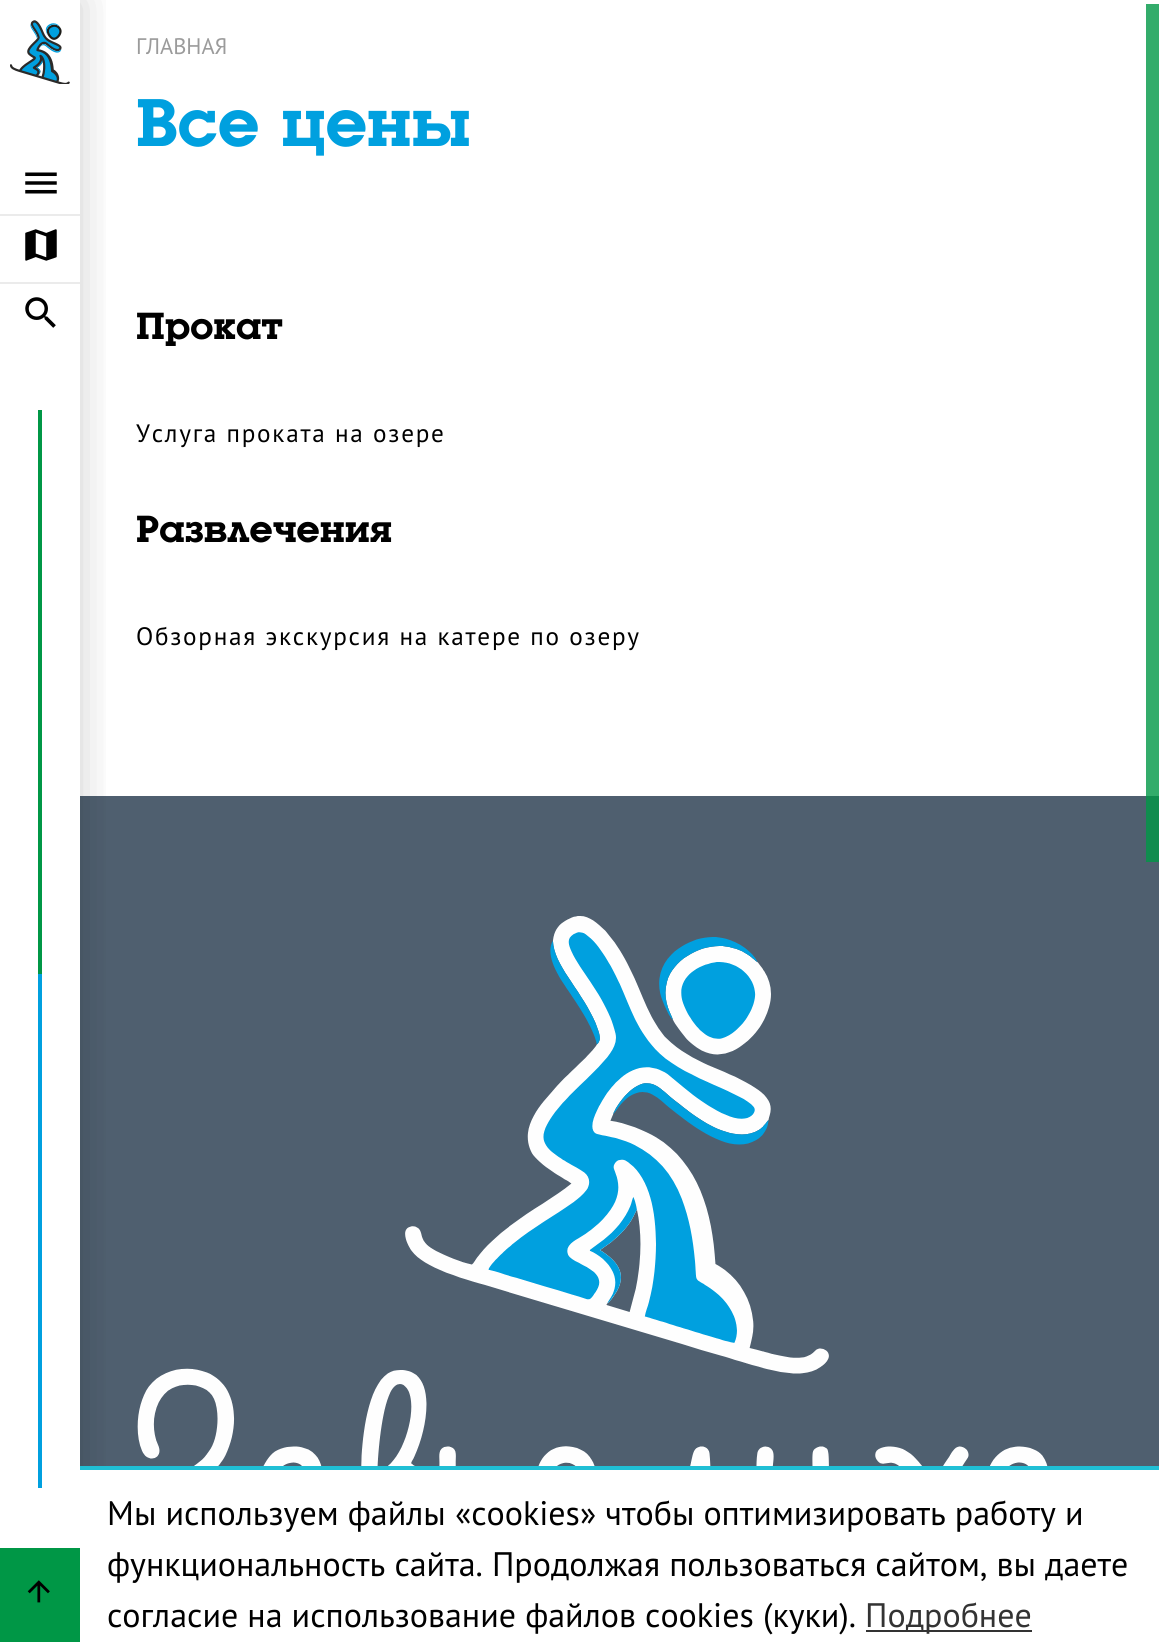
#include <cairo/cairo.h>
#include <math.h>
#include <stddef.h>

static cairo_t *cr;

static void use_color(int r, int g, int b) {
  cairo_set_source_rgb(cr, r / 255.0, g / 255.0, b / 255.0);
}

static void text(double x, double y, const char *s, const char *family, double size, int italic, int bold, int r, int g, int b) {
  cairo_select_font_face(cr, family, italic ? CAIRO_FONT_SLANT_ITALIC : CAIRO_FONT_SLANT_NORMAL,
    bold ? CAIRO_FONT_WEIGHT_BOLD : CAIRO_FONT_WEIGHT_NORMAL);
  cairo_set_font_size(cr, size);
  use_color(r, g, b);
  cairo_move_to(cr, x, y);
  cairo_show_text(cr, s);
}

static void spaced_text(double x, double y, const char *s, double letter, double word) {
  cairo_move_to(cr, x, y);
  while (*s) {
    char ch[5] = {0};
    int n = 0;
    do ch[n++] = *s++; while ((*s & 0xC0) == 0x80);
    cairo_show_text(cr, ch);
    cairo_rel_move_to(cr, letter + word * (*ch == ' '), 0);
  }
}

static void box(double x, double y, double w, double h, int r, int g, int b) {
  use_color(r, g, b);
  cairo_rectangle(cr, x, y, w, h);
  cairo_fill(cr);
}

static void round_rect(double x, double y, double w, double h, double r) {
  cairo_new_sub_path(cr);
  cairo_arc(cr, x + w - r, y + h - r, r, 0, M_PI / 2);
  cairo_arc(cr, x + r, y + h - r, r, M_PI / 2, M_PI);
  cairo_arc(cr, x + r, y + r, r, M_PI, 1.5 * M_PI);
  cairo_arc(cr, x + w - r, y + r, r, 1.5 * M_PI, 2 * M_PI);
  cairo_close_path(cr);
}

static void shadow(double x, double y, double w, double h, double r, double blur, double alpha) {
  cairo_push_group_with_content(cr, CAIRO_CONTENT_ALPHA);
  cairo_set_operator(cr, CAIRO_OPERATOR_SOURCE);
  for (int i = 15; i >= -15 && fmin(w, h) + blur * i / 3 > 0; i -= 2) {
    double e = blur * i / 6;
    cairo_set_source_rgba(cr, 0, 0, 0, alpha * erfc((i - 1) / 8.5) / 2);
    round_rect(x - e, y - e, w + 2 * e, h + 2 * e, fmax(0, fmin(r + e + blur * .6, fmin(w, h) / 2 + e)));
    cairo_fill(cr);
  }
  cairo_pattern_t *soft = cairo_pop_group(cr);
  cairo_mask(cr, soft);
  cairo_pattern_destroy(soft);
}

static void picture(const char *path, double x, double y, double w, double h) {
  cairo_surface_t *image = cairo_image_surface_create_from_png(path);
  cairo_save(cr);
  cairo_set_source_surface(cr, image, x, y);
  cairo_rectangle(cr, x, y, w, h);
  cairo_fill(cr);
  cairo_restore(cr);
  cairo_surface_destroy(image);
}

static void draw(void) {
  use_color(255, 255, 255);
  cairo_paint(cr);
  box(1146, 4, 13, 792, 51, 172, 107);
  box(80, 796, 1079, 670, 79, 95, 111);
  picture("img_06.png", 137, 916, 911, 550);
  cairo_save(cr);
  cairo_rectangle(cr, 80, 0, 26, 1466);
  cairo_clip(cr);
  use_color(0, 0, 0);
  shadow(0, 0, 80, 1642, 0, 20, 0.2);
  cairo_restore(cr);
  picture("img_01.png", 10, 20, 60, 64);
  box(0, 214, 80, 2, 235, 235, 235);
  picture("img_02.png", 25, 172, 32, 22);
  box(0, 282, 80, 2, 235, 235, 235);
  picture("img_03.png", 25, 229, 32, 32);
  picture("img_04.png", 25, 297, 31, 31);
  box(38, 974, 4, 514, 0, 160, 223);
  box(38, 410, 4, 564, 0, 151, 70);
  box(0, 1548, 80, 94, 0, 151, 70);
  picture("img_05.png", 27, 1580, 23, 23);
  box(80, 1470, 33, 172, 255, 255, 255);
  box(80, 1466, 1079, 4, 32, 191, 213);
  box(866, 1630, 166, 2, 51, 51, 51);
  box(1146, 796, 13, 66, 16, 140, 78);
  text(136, 54, "ГЛАВНАЯ", "PT Sans", 22.5, 0, 0, 155, 155, 155);
  text(136, 146, "Все цены", "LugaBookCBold", 70, 0, 1, 0, 160, 223);
  text(136, 339, "Прокат", "LugaBookCBold", 39.25, 0, 1, 0, 0, 0);
  cairo_select_font_face(cr, "PT Sans", CAIRO_FONT_SLANT_NORMAL, CAIRO_FONT_WEIGHT_NORMAL);
  cairo_set_font_size(cr, 25.2);
  spaced_text(136, 442, "Услуга проката на озере", 1.75, 0);
  text(136, 542, "Развлечения", "LugaBookCBold", 39.25, 0, 1, 0, 0, 0);
  cairo_select_font_face(cr, "PT Sans", CAIRO_FONT_SLANT_NORMAL, CAIRO_FONT_WEIGHT_NORMAL);
  cairo_set_font_size(cr, 25.2);
  spaced_text(136, 645, "Обзорная экскурсия на катере по озеру", 1.75, 0);
  text(107, 1525, "Мы используем файлы «cookies» чтобы оптимизировать работу и", "PT Sans", 34, 0, 0, 0, 0, 0);
  text(107, 1576, "функциональность сайта. Продолжая пользоваться сайтом, вы даете", "PT Sans", 34, 0, 0, 0, 0, 0);
  text(107, 1627, "согласие на использование файлов cookies (куки).", "PT Sans", 34, 0, 0, 0, 0, 0);
  text(865, 1627, "Подробнее", "PT Sans", 34, 0, 0, 51, 51, 51);
}

int main(void) {
  cairo_surface_t *surface = cairo_image_surface_create(CAIRO_FORMAT_RGB24, 1159, 1642);
  cr = cairo_create(surface);
  cairo_font_options_t *options = cairo_font_options_create();
  cairo_font_options_set_hint_metrics(options, CAIRO_HINT_METRICS_OFF);
  cairo_font_options_set_hint_style(options, CAIRO_HINT_STYLE_NONE);
  cairo_set_font_options(cr, options);
  cairo_set_miter_limit(cr, 4);
  draw();
  cairo_surface_write_to_png(surface, "out.png");
  cairo_font_options_destroy(options);
  cairo_destroy(cr);
  cairo_surface_destroy(surface);
  return 0;
}
